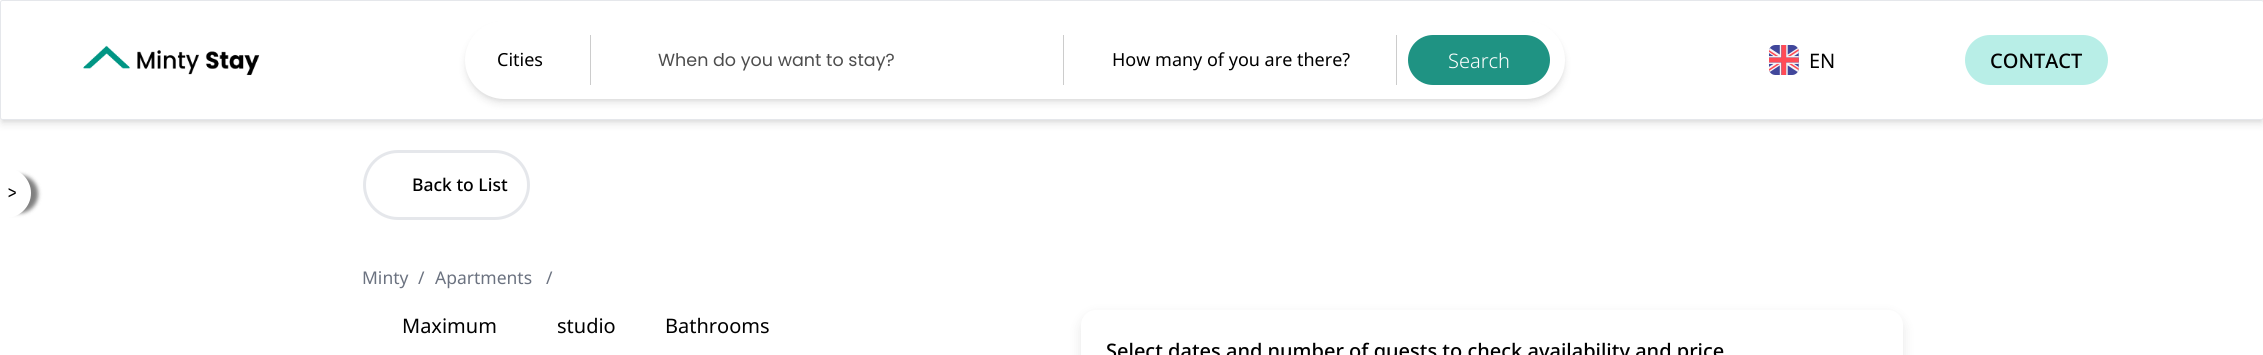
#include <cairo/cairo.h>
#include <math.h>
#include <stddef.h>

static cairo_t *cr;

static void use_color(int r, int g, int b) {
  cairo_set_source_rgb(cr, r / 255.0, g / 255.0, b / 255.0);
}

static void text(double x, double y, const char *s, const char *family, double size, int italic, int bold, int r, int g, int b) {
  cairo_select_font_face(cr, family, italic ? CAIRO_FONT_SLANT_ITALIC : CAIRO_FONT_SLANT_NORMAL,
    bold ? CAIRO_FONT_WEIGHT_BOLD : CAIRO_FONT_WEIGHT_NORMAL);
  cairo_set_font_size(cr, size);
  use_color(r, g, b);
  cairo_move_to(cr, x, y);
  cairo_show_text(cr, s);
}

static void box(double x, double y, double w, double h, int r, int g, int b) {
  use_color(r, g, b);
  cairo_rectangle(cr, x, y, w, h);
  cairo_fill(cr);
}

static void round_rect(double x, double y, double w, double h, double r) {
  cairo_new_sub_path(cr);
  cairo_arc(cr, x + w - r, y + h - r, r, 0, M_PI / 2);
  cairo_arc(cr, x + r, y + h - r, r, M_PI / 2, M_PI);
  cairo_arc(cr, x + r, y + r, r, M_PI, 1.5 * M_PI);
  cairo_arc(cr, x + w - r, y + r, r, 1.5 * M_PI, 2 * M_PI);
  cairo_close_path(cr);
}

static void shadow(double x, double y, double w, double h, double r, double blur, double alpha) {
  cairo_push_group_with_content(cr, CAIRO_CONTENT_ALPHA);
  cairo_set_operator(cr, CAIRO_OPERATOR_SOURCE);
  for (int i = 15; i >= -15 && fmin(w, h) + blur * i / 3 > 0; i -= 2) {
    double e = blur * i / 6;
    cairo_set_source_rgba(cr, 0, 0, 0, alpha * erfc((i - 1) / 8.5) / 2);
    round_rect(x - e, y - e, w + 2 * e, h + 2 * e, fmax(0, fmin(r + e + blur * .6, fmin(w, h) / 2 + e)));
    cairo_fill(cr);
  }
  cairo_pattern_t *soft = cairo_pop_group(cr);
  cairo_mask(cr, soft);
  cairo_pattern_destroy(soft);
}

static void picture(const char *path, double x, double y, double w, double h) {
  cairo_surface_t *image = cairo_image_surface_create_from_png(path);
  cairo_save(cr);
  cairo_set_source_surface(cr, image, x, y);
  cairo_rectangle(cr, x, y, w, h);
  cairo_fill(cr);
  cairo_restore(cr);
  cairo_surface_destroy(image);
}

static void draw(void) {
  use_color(255, 255, 255);
  cairo_paint(cr);
  use_color(0, 0, 0);
  shadow(-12, 175, 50, 38, 25, 2, 0.5);
  use_color(255, 255, 255);
  cairo_new_path(cr);
  cairo_move_to(cr, 31, 193);
  cairo_curve_to(cr, 31, 207, 19, 218, 6, 218);
  cairo_line_to(cr, -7, 218);
  cairo_line_to(cr, -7, 168);
  cairo_line_to(cr, 6, 168);
  cairo_curve_to(cr, 19, 168, 31, 179, 31, 193);
  cairo_close_path(cr);
  cairo_fill(cr);
  use_color(0, 0, 0);
  shadow(3, 5, 2258, 115, 0, 2.5, 0.1);
  shadow(1, 6, 2262, 118, 1, 4, 0.1);
  use_color(255, 255, 255);
  round_rect(0.5, 0.5, 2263, 119, 2);
  cairo_fill_preserve(cr);
  use_color(229, 231, 235);
  cairo_set_line_width(cr, 1);
  cairo_stroke(cr);
  picture("img_01.png", 83, 45, 177, 31);
  use_color(0, 0, 0);
  shadow(468, 26, 1095, 73, 36.5, 2.5, 0.1);
  shadow(466, 28, 1098, 75, 37.5, 4, 0.1);
  use_color(255, 255, 255);
  round_rect(465, 21, 1100, 78, 39);
  cairo_fill(cr);
  box(590, 35, 1, 50, 204, 204, 204);
  box(1063, 35, 1, 50, 204, 204, 204);
  box(1396, 35, 1, 50, 204, 204, 204);
  use_color(31, 147, 131);
  round_rect(1408, 35, 142, 50, 25);
  cairo_fill(cr);
  picture("img_02.png", 1769, 45, 30, 30);
  use_color(184, 238, 231);
  round_rect(1965, 35, 143, 50, 25);
  cairo_fill(cr);
  round_rect(364.5, 151.5, 164, 67, 33.5);
  use_color(229, 231, 235);
  cairo_set_line_width(cr, 3);
  cairo_stroke(cr);
  use_color(0, 0, 0);
  shadow(1081, 315, 822, 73, 15, 6, 0.1);
  use_color(255, 255, 255);
  round_rect(1081, 310, 822, 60, 15);
  cairo_fill(cr);
  cairo_save(cr);
  cairo_translate(cr, 2, 188);
  cairo_rotate(cr, 90 * M_PI / 180);
  text(0, 0, "^", "Liberation Sans", 20, 0, 0, 0, 0, 0);
  cairo_restore(cr);
  text(497, 66, "Cities", "Noto Sans", 18, 0, 0, 0, 0, 0);
  text(658, 66, "When do you want to stay?", "Poppins", 17.5, 0, 0, 77, 77, 77);
  text(1112, 66, "How many of you are there?", "Noto Sans", 18, 0, 0, 0, 0, 0);
  text(1448, 68, "Search", "Noto Sans Light", 20, 0, 0, 255, 255, 255);
  text(1809, 68, "EN", "Noto Sans", 20, 0, 0, 0, 0, 0);
  text(1990, 68, "CONTACT", "Noto Sans Medium", 20, 0, 0, 0, 0, 0);
  text(412, 191, "Back to List", "Noto Sans Medium", 17.5, 0, 0, 0, 0, 0);
  text(362, 284, "Minty", "Noto Sans", 17.5, 0, 0, 107, 114, 128);
  text(418, 284, "/", "Noto Sans", 17.5, 0, 0, 107, 114, 128);
  text(435, 284, "Apartments", "Noto Sans", 17.5, 0, 0, 107, 114, 128);
  text(546, 284, "/", "Noto Sans", 17.5, 0, 0, 107, 114, 128);
  text(402, 333, "Maximum", "Noto Sans", 20, 0, 0, 0, 0, 0);
  text(557, 333, "studio", "Noto Sans", 20, 0, 0, 0, 0, 0);
  text(665, 333, "Bathrooms", "Noto Sans", 20, 0, 0, 0, 0, 0);
  text(1106, 358, "Select dates and number of guests to check availability and price", "Noto Sans Medium", 20, 0, 0, 0, 0, 0);
}

int main(void) {
  cairo_surface_t *surface = cairo_image_surface_create(CAIRO_FORMAT_RGB24, 2263, 355);
  cr = cairo_create(surface);
  cairo_font_options_t *options = cairo_font_options_create();
  cairo_font_options_set_hint_metrics(options, CAIRO_HINT_METRICS_OFF);
  cairo_font_options_set_hint_style(options, CAIRO_HINT_STYLE_NONE);
  cairo_set_font_options(cr, options);
  cairo_set_miter_limit(cr, 4);
  draw();
  cairo_surface_write_to_png(surface, "out.png");
  cairo_font_options_destroy(options);
  cairo_destroy(cr);
  cairo_surface_destroy(surface);
  return 0;
}
